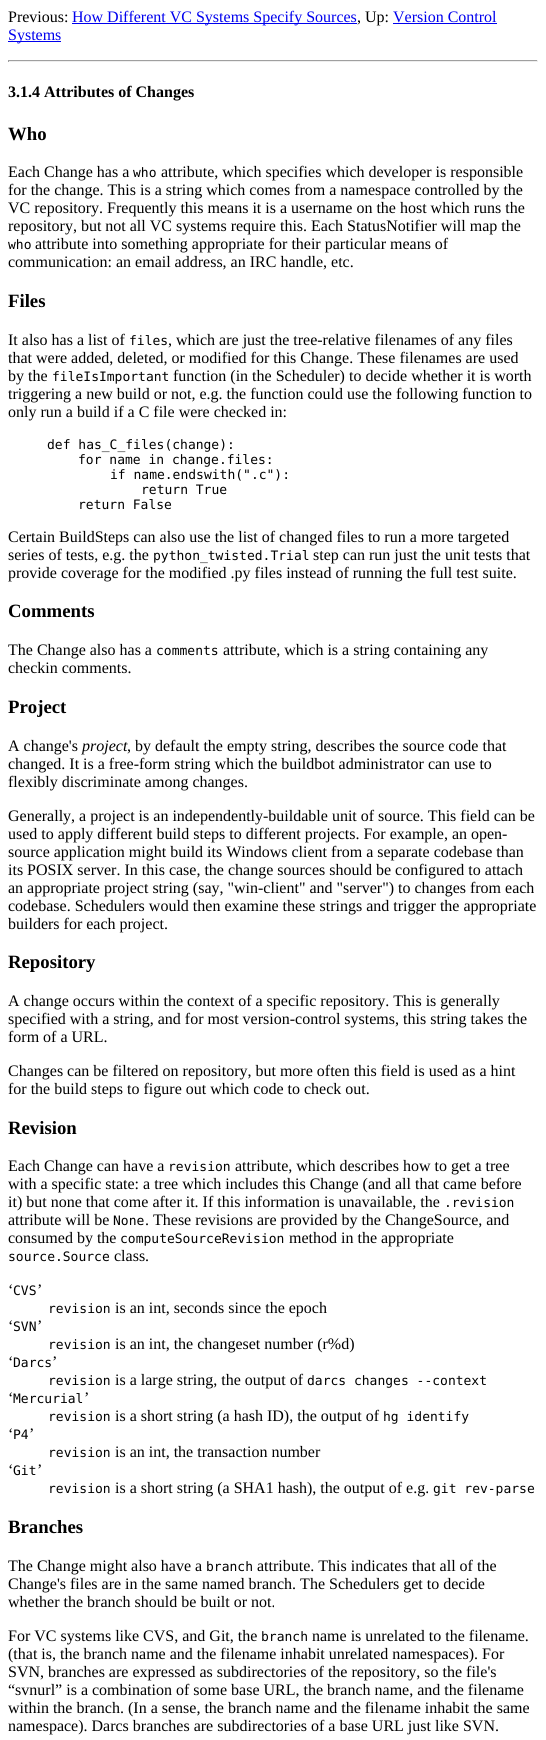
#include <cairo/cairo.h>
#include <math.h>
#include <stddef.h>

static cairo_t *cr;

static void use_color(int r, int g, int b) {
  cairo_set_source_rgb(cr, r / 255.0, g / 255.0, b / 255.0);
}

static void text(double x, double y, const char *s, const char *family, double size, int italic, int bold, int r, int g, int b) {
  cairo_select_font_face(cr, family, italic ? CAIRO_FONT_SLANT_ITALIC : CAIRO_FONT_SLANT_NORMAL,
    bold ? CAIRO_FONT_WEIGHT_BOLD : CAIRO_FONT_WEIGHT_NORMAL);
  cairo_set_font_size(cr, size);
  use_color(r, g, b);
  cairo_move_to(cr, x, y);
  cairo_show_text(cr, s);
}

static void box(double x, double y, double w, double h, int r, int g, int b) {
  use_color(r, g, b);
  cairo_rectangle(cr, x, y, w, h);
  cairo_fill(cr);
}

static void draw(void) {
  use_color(255, 255, 255);
  cairo_paint(cr);
  box(72, 23, 285, 1, 0, 0, 238);
  box(393, 23, 104, 1, 0, 0, 238);
  box(8, 41, 53, 1, 0, 0, 238);
  box(8, 60, 530, 1, 159, 159, 159);
  box(537, 60, 1, 2, 238, 238, 238);
  box(8, 61, 530, 1, 238, 238, 238);
  box(8, 60, 1, 2, 159, 159, 159);
  text(8, 22, "Previous:", "Liberation Serif", 16, 0, 0, 0, 0, 0);
  text(72, 22, "How Different VC Systems Specify Sources", "Liberation Serif", 16, 0, 0, 0, 0, 238);
  text(357, 22, ", Up:", "Liberation Serif", 16, 0, 0, 0, 0, 0);
  text(393, 22, "Version Control", "Liberation Serif", 16, 0, 0, 0, 0, 238);
  text(8, 40, "Systems", "Liberation Serif", 16, 0, 0, 0, 0, 238);
  text(8, 97, "3.1.4 Attributes of Changes", "Liberation Serif", 16, 0, 1, 0, 0, 0);
  text(8, 140, "Who", "Liberation Serif", 18.75, 0, 1, 0, 0, 0);
  text(8, 177, "Each Change has a", "Liberation Serif", 16, 0, 0, 0, 0, 0);
  text(133, 177, "who", "DejaVu Sans Mono", 13, 0, 0, 0, 0, 0);
  text(161, 177, "attribute, which specifies which developer is responsible", "Liberation Serif", 16, 0, 0, 0, 0, 0);
  text(8, 195, "for the change. This is a string which comes from a namespace controlled by the", "Liberation Serif", 16, 0, 0, 0, 0, 0);
  text(8, 213, "VC repository. Frequently this means it is a username on the host which runs the", "Liberation Serif", 16, 0, 0, 0, 0, 0);
  text(8, 231, "repository, but not all VC systems require this. Each StatusNotifier will map the", "Liberation Serif", 16, 0, 0, 0, 0, 0);
  text(8, 249, "who", "DejaVu Sans Mono", 13, 0, 0, 0, 0, 0);
  text(35, 249, "attribute into something appropriate for their particular means of", "Liberation Serif", 16, 0, 0, 0, 0, 0);
  text(8, 267, "communication: an email address, an IRC handle, etc.", "Liberation Serif", 16, 0, 0, 0, 0, 0);
  text(8, 307, "Files", "Liberation Serif", 18.75, 0, 1, 0, 0, 0);
  text(8, 345, "It also has a list of", "Liberation Serif", 16, 0, 0, 0, 0, 0);
  text(129, 345, "files", "DejaVu Sans Mono", 13, 0, 0, 0, 0, 0);
  text(168, 345, ", which are just the tree-relative filenames of any files", "Liberation Serif", 16, 0, 0, 0, 0, 0);
  text(8, 363, "that were added, deleted, or modified for this Change. These filenames are used", "Liberation Serif", 16, 0, 0, 0, 0, 0);
  text(8, 381, "by the", "Liberation Serif", 16, 0, 0, 0, 0, 0);
  text(52, 381, "fileIsImportant", "DejaVu Sans Mono", 13, 0, 0, 0, 0, 0);
  text(173, 381, "function (in the Scheduler) to decide whether it is worth", "Liberation Serif", 16, 0, 0, 0, 0, 0);
  text(8, 399, "triggering a new build or not, e.g. the function could use the following function to", "Liberation Serif", 16, 0, 0, 0, 0, 0);
  text(8, 417, "only run a build if a C file were checked in:", "Liberation Serif", 16, 0, 0, 0, 0, 0);
  text(47, 449, "def has_C_files(change):", "DejaVu Sans Mono", 13, 0, 0, 0, 0, 0);
  text(78, 464, "for name in change.files:", "DejaVu Sans Mono", 13, 0, 0, 0, 0, 0);
  text(110, 479, "if name.endswith(\".c\"):", "DejaVu Sans Mono", 13, 0, 0, 0, 0, 0);
  text(141, 494, "return True", "DejaVu Sans Mono", 13, 0, 0, 0, 0, 0);
  text(78, 509, "return False", "DejaVu Sans Mono", 13, 0, 0, 0, 0, 0);
  text(8, 542, "Certain BuildSteps can also use the list of changed files to run a more targeted", "Liberation Serif", 16, 0, 0, 0, 0, 0);
  text(8, 560, "series of tests, e.g. the", "Liberation Serif", 16, 0, 0, 0, 0, 0);
  text(153, 560, "python_twisted.Trial", "DejaVu Sans Mono", 13, 0, 0, 0, 0, 0);
  text(313, 560, "step can run just the unit tests that", "Liberation Serif", 16, 0, 0, 0, 0, 0);
  text(8, 578, "provide coverage for the modified .py files instead of running the full test suite.", "Liberation Serif", 16, 0, 0, 0, 0, 0);
  text(8, 617, "Comments", "Liberation Serif", 18.75, 0, 1, 0, 0, 0);
  text(8, 655, "The Change also has a", "Liberation Serif", 16, 0, 0, 0, 0, 0);
  text(156, 655, "comments", "DejaVu Sans Mono", 13, 0, 0, 0, 0, 0);
  text(223, 655, "attribute, which is a string containing any", "Liberation Serif", 16, 0, 0, 0, 0, 0);
  text(8, 673, "checkin comments.", "Liberation Serif", 16, 0, 0, 0, 0, 0);
  text(8, 713, "Project", "Liberation Serif", 18.75, 0, 1, 0, 0, 0);
  text(8, 751, "A change's", "Liberation Serif", 16, 0, 0, 0, 0, 0);
  text(82, 751, "project", "Liberation Serif", 16, 1, 0, 0, 0, 0);
  text(127, 751, ", by default the empty string, describes the source code that", "Liberation Serif", 16, 0, 0, 0, 0, 0);
  text(8, 769, "changed. It is a free-form string which the buildbot administrator can use to", "Liberation Serif", 16, 0, 0, 0, 0, 0);
  text(8, 787, "flexibly discriminate among changes.", "Liberation Serif", 16, 0, 0, 0, 0, 0);
  text(8, 821, "Generally, a project is an independently-buildable unit of source. This field can be", "Liberation Serif", 16, 0, 0, 0, 0, 0);
  text(8, 839, "used to apply different build steps to different projects. For example, an open-", "Liberation Serif", 16, 0, 0, 0, 0, 0);
  text(8, 857, "source application might build its Windows client from a separate codebase than", "Liberation Serif", 16, 0, 0, 0, 0, 0);
  text(8, 875, "its POSIX server. In this case, the change sources should be configured to attach", "Liberation Serif", 16, 0, 0, 0, 0, 0);
  text(8, 893, "an appropriate project string (say, \"win-client\" and \"server\") to changes from each", "Liberation Serif", 16, 0, 0, 0, 0, 0);
  text(8, 911, "codebase. Schedulers would then examine these strings and trigger the appropriate", "Liberation Serif", 16, 0, 0, 0, 0, 0);
  text(8, 929, "builders for each project.", "Liberation Serif", 16, 0, 0, 0, 0, 0);
  text(8, 968, "Repository", "Liberation Serif", 18.75, 0, 1, 0, 0, 0);
  text(8, 1006, "A change occurs within the context of a specific repository. This is generally", "Liberation Serif", 16, 0, 0, 0, 0, 0);
  text(8, 1024, "specified with a string, and for most version-control systems, this string takes the", "Liberation Serif", 16, 0, 0, 0, 0, 0);
  text(8, 1042, "form of a URL.", "Liberation Serif", 16, 0, 0, 0, 0, 0);
  text(8, 1076, "Changes can be filtered on repository, but more often this field is used as a hint", "Liberation Serif", 16, 0, 0, 0, 0, 0);
  text(8, 1094, "for the build steps to figure out which code to check out.", "Liberation Serif", 16, 0, 0, 0, 0, 0);
  text(8, 1134, "Revision", "Liberation Serif", 18.75, 0, 1, 0, 0, 0);
  text(8, 1171, "Each Change can have a", "Liberation Serif", 16, 0, 0, 0, 0, 0);
  text(168, 1171, "revision", "DejaVu Sans Mono", 13, 0, 0, 0, 0, 0);
  text(235, 1171, "attribute, which describes how to get a tree", "Liberation Serif", 16, 0, 0, 0, 0, 0);
  text(8, 1189, "with a specific state: a tree which includes this Change (and all that came before", "Liberation Serif", 16, 0, 0, 0, 0, 0);
  text(8, 1207, "it) but none that come after it. If this information is unavailable, the", "Liberation Serif", 16, 0, 0, 0, 0, 0);
  text(444, 1207, ".revision", "DejaVu Sans Mono", 13, 0, 0, 0, 0, 0);
  text(8, 1225, "attribute will be", "Liberation Serif", 16, 0, 0, 0, 0, 0);
  text(113, 1225, "None", "DejaVu Sans Mono", 13, 0, 0, 0, 0, 0);
  text(145, 1225, ". These revisions are provided by the ChangeSource, and", "Liberation Serif", 16, 0, 0, 0, 0, 0);
  text(8, 1243, "consumed by the", "Liberation Serif", 16, 0, 0, 0, 0, 0);
  text(120, 1243, "computeSourceRevision", "DejaVu Sans Mono", 13, 0, 0, 0, 0, 0);
  text(289, 1243, "method in the appropriate", "Liberation Serif", 16, 0, 0, 0, 0, 0);
  text(8, 1261, "source.Source", "DejaVu Sans Mono", 13, 0, 0, 0, 0, 0);
  text(114, 1261, "class.", "Liberation Serif", 16, 0, 0, 0, 0, 0);
  text(8, 1295, "‘", "Liberation Serif", 16, 0, 0, 0, 0, 0);
  text(13, 1295, "CVS", "DejaVu Sans Mono", 13, 0, 0, 0, 0, 0);
  text(37, 1295, "’", "Liberation Serif", 16, 0, 0, 0, 0, 0);
  text(48, 1313, "revision", "DejaVu Sans Mono", 13, 0, 0, 0, 0, 0);
  text(115, 1313, "is an int, seconds since the epoch", "Liberation Serif", 16, 0, 0, 0, 0, 0);
  text(8, 1331, "‘", "Liberation Serif", 16, 0, 0, 0, 0, 0);
  text(13, 1331, "SVN", "DejaVu Sans Mono", 13, 0, 0, 0, 0, 0);
  text(37, 1331, "’", "Liberation Serif", 16, 0, 0, 0, 0, 0);
  text(48, 1349, "revision", "DejaVu Sans Mono", 13, 0, 0, 0, 0, 0);
  text(115, 1349, "is an int, the changeset number (r%d)", "Liberation Serif", 16, 0, 0, 0, 0, 0);
  text(8, 1367, "‘", "Liberation Serif", 16, 0, 0, 0, 0, 0);
  text(13, 1367, "Darcs", "DejaVu Sans Mono", 13, 0, 0, 0, 0, 0);
  text(52, 1367, "’", "Liberation Serif", 16, 0, 0, 0, 0, 0);
  text(48, 1385, "revision", "DejaVu Sans Mono", 13, 0, 0, 0, 0, 0);
  text(115, 1385, "is a large string, the output of", "Liberation Serif", 16, 0, 0, 0, 0, 0);
  text(307, 1385, "darcs changes --context", "DejaVu Sans Mono", 13, 0, 0, 0, 0, 0);
  text(8, 1403, "‘", "Liberation Serif", 16, 0, 0, 0, 0, 0);
  text(13, 1403, "Mercurial", "DejaVu Sans Mono", 13, 0, 0, 0, 0, 0);
  text(84, 1403, "’", "Liberation Serif", 16, 0, 0, 0, 0, 0);
  text(48, 1421, "revision", "DejaVu Sans Mono", 13, 0, 0, 0, 0, 0);
  text(115, 1421, "is a short string (a hash ID), the output of", "Liberation Serif", 16, 0, 0, 0, 0, 0);
  text(383, 1421, "hg identify", "DejaVu Sans Mono", 13, 0, 0, 0, 0, 0);
  text(8, 1439, "‘", "Liberation Serif", 16, 0, 0, 0, 0, 0);
  text(13, 1439, "P4", "DejaVu Sans Mono", 13, 0, 0, 0, 0, 0);
  text(29, 1439, "’", "Liberation Serif", 16, 0, 0, 0, 0, 0);
  text(48, 1457, "revision", "DejaVu Sans Mono", 13, 0, 0, 0, 0, 0);
  text(115, 1457, "is an int, the transaction number", "Liberation Serif", 16, 0, 0, 0, 0, 0);
  text(8, 1475, "‘", "Liberation Serif", 16, 0, 0, 0, 0, 0);
  text(13, 1475, "Git", "DejaVu Sans Mono", 13, 0, 0, 0, 0, 0);
  text(37, 1475, "’", "Liberation Serif", 16, 0, 0, 0, 0, 0);
  text(48, 1493, "revision", "DejaVu Sans Mono", 13, 0, 0, 0, 0, 0);
  text(115, 1493, "is a short string (a SHA1 hash), the output of e.g.", "Liberation Serif", 16, 0, 0, 0, 0, 0);
  text(433, 1493, "git rev-parse", "DejaVu Sans Mono", 13, 0, 0, 0, 0, 0);
  text(8, 1533, "Branches", "Liberation Serif", 18.75, 0, 1, 0, 0, 0);
  text(8, 1571, "The Change might also have a", "Liberation Serif", 16, 0, 0, 0, 0, 0);
  text(206, 1571, "branch", "DejaVu Sans Mono", 13, 0, 0, 0, 0, 0);
  text(257, 1571, "attribute. This indicates that all of the", "Liberation Serif", 16, 0, 0, 0, 0, 0);
  text(8, 1589, "Change's files are in the same named branch. The Schedulers get to decide", "Liberation Serif", 16, 0, 0, 0, 0, 0);
  text(8, 1607, "whether the branch should be built or not.", "Liberation Serif", 16, 0, 0, 0, 0, 0);
  text(8, 1641, "For VC systems like CVS, and Git, the", "Liberation Serif", 16, 0, 0, 0, 0, 0);
  text(261, 1641, "branch", "DejaVu Sans Mono", 13, 0, 0, 0, 0, 0);
  text(312, 1641, "name is unrelated to the filename.", "Liberation Serif", 16, 0, 0, 0, 0, 0);
  text(8, 1659, "(that is, the branch name and the filename inhabit unrelated namespaces). For", "Liberation Serif", 16, 0, 0, 0, 0, 0);
  text(8, 1677, "SVN, branches are expressed as subdirectories of the repository, so the file's", "Liberation Serif", 16, 0, 0, 0, 0, 0);
  text(8, 1695, "“svnurl” is a combination of some base URL, the branch name, and the filename", "Liberation Serif", 16, 0, 0, 0, 0, 0);
  text(8, 1713, "within the branch. (In a sense, the branch name and the filename inhabit the same", "Liberation Serif", 16, 0, 0, 0, 0, 0);
  text(8, 1731, "namespace). Darcs branches are subdirectories of a base URL just like SVN.", "Liberation Serif", 16, 0, 0, 0, 0, 0);
}

int main(void) {
  cairo_surface_t *surface = cairo_image_surface_create(CAIRO_FORMAT_RGB24, 546, 1740);
  cr = cairo_create(surface);
  cairo_font_options_t *options = cairo_font_options_create();
  cairo_font_options_set_hint_metrics(options, CAIRO_HINT_METRICS_OFF);
  cairo_font_options_set_hint_style(options, CAIRO_HINT_STYLE_NONE);
  cairo_set_font_options(cr, options);
  cairo_set_miter_limit(cr, 4);
  draw();
  cairo_surface_write_to_png(surface, "out.png");
  cairo_font_options_destroy(options);
  cairo_destroy(cr);
  cairo_surface_destroy(surface);
  return 0;
}
